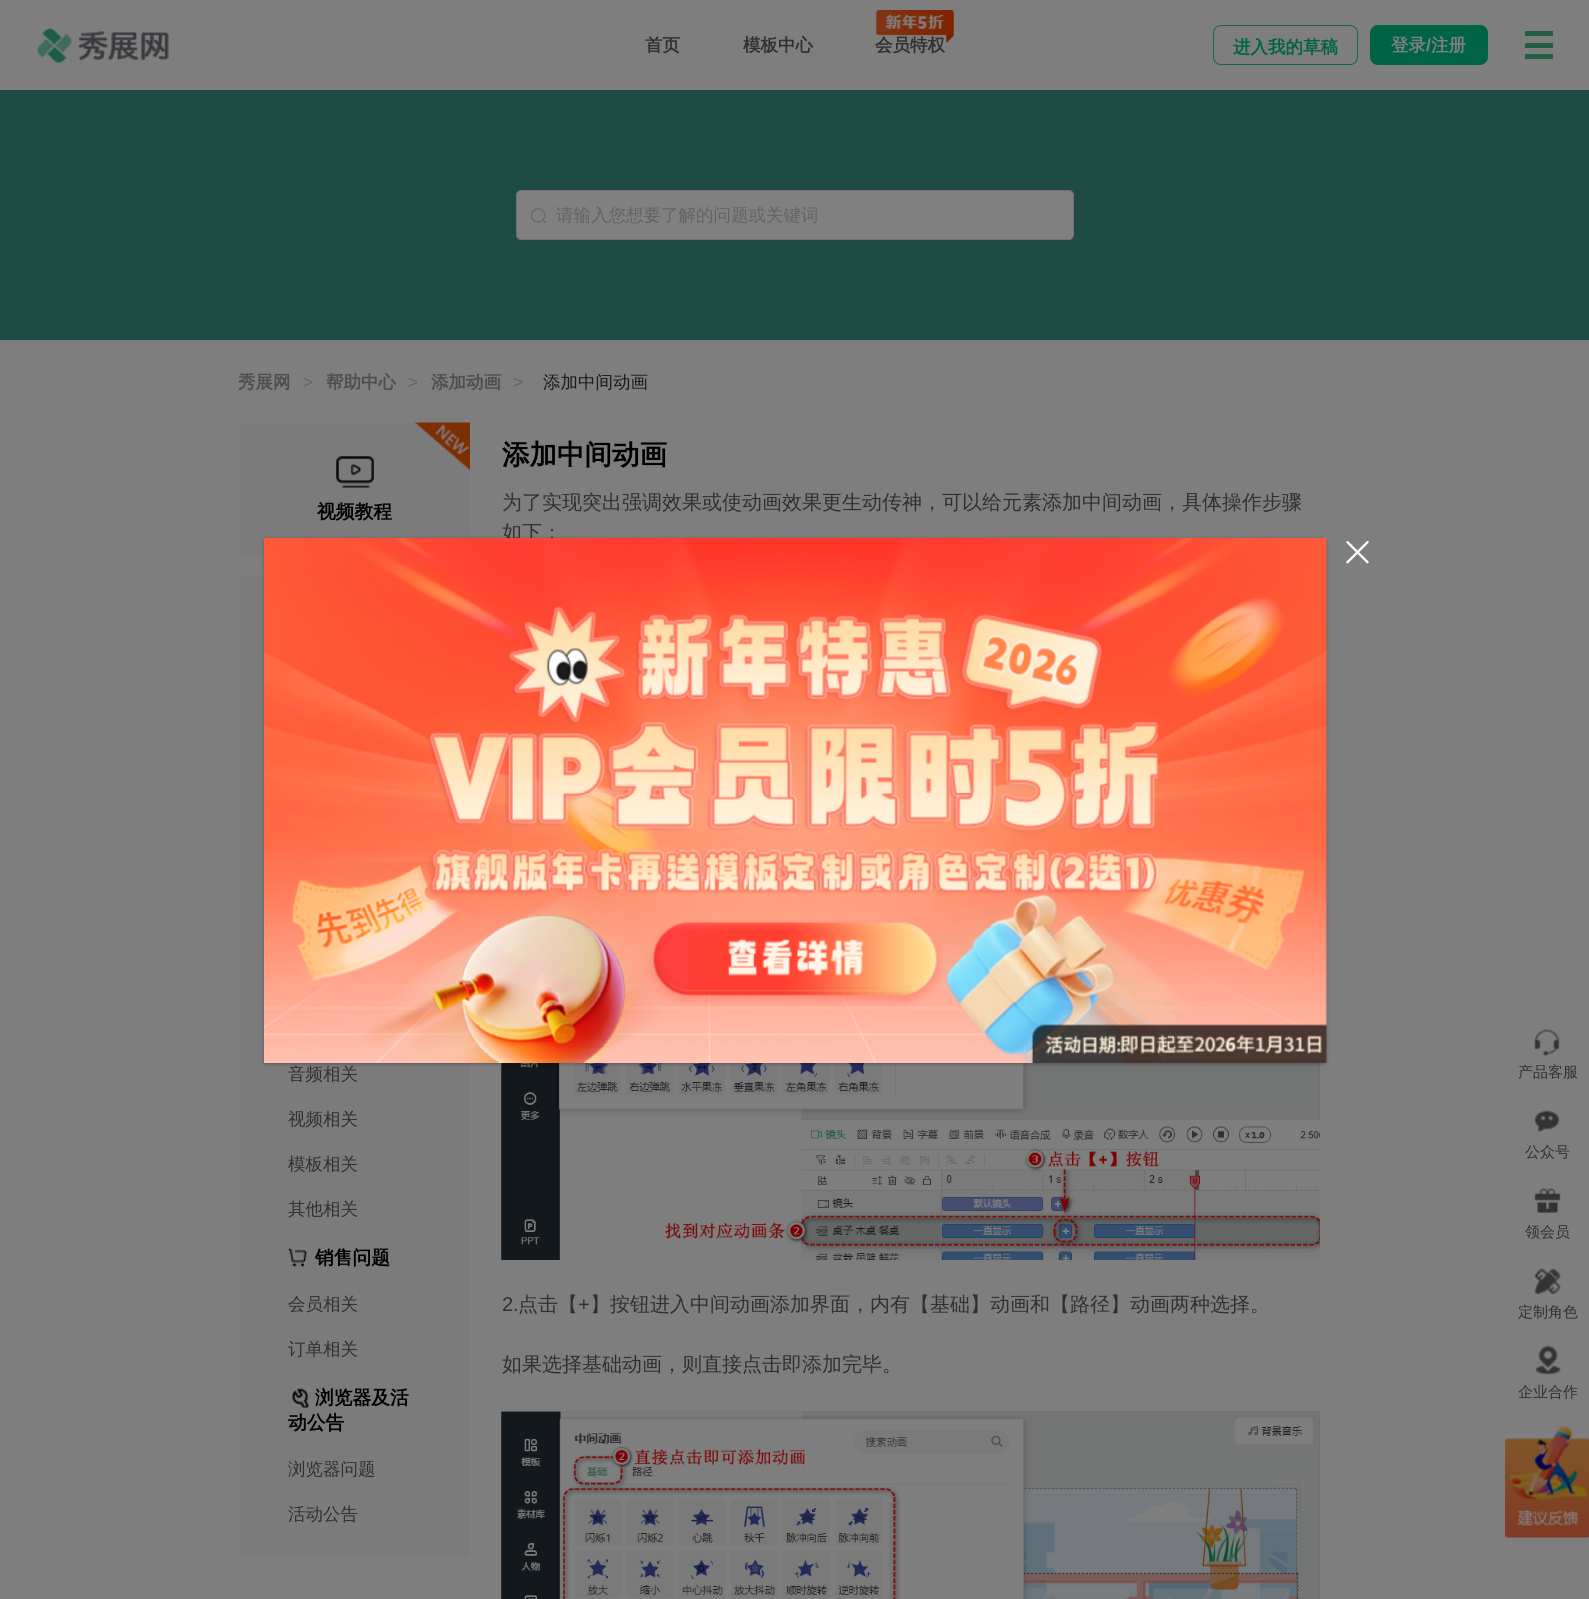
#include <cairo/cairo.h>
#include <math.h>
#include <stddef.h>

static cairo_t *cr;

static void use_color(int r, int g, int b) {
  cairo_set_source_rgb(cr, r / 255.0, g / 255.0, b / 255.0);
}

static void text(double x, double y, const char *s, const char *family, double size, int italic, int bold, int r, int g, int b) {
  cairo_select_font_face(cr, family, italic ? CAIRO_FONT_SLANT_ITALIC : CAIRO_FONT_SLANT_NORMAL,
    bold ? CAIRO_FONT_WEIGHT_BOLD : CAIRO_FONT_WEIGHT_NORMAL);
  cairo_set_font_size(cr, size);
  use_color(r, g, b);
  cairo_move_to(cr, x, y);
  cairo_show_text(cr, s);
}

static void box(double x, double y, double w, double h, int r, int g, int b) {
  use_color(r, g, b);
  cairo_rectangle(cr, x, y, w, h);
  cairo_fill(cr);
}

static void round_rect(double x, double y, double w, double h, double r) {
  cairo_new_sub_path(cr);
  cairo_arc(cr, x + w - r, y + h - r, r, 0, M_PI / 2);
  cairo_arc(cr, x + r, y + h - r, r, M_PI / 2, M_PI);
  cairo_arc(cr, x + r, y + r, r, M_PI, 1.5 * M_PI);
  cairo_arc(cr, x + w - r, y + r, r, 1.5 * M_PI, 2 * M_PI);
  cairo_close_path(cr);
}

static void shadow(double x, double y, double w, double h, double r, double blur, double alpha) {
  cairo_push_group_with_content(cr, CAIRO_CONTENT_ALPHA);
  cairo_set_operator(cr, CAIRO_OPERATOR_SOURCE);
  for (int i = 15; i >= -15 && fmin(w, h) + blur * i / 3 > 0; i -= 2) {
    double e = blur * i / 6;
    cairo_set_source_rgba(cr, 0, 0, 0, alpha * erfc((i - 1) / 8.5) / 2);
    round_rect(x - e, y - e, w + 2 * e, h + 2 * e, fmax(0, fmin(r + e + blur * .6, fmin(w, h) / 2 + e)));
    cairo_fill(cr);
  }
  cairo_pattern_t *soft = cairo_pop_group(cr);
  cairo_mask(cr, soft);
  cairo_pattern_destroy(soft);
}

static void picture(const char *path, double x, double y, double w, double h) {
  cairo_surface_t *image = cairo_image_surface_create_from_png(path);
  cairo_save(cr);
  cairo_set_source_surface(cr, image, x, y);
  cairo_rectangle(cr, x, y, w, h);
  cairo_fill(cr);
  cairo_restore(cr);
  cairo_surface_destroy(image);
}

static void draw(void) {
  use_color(126, 126, 126);
  cairo_paint(cr);
  picture("img_01.png", 37, 28, 132, 35);
  round_rect(1213.5, 25.5, 144, 39, 7.5);
  use_color(15, 102, 75);
  cairo_set_line_width(cr, 1);
  cairo_stroke(cr);
  use_color(0, 99, 69);
  round_rect(1370, 25, 118, 40, 8);
  cairo_fill(cr);
  box(1525, 43, 28, 5, 35, 95, 69);
  box(1525, 31, 28, 5, 35, 95, 69);
  box(1525, 54, 28, 5, 35, 95, 69);
  box(0, 90, 1589, 250, 31, 75, 69);
  use_color(128, 128, 128);
  round_rect(516.5, 190.5, 557, 49, 4.5);
  cairo_fill_preserve(cr);
  use_color(110, 112, 115);
  cairo_stroke(cr);
  picture("img_03.png", 531, 208, 15, 15);
  box(239, 423, 231, 133, 123, 123, 123);
  picture("img_04.png", 336, 456, 38, 32);
  picture("img_05.png", 415, 422, 55, 48);
  box(239, 575, 231, 983, 123, 123, 123);
  picture("img_06.png", 288, 1248, 19, 19);
  picture("img_07.png", 292, 1388, 17, 20);
  picture("img_08.png", 501, 1063, 819, 197);
  picture("img_09.png", 501, 1411, 819, 188);
  use_color(0, 0, 0);
  shadow(264, 539, 1062, 525, 2.5, 2, 0.3);
  picture("img_11.png", 1346, 541, 23, 23);
  picture("img_12.png", 1534, 1029, 26, 27);
  picture("img_13.png", 1534, 1110, 26, 22);
  picture("img_14.png", 1534, 1188, 27, 25);
  picture("img_15.png", 1534, 1268, 27, 27);
  picture("img_16.png", 1535, 1345, 26, 30);
  picture("img_17.png", 1505, 1426, 84, 113);
  text(645, 51, "首页", "WenQuanYi Zen Hei", 17.5, 0, 1, 48, 48, 48);
  text(743, 51, "模板中心", "WenQuanYi Zen Hei", 17.5, 0, 1, 48, 48, 48);
  text(875, 51, "会员特权", "WenQuanYi Zen Hei", 17.5, 0, 1, 48, 48, 48);
  picture("img_02.png", 876, 10, 78, 33);
  text(1233, 53, "进入我的草稿", "WenQuanYi Zen Hei", 17.5, 0, 1, 0, 99, 69);
  text(1391, 51, "登录", "WenQuanYi Zen Hei", 17.5, 0, 1, 128, 128, 128);
  text(1426, 51, "/", "Liberation Sans", 17.5, 0, 1, 128, 128, 128);
  text(1431, 51, "注册", "WenQuanYi Zen Hei", 17.5, 0, 1, 128, 128, 128);
  text(556, 221, "请输入您想要了解的问题或关键词", "WenQuanYi Zen Hei Medium", 17.5, 0, 0, 96, 98, 102);
  text(238, 388, "秀展网", "WenQuanYi Zen Hei", 17.5, 0, 1, 77, 77, 77);
  text(303, 388, ">", "Liberation Sans", 17.5, 0, 0, 96, 98, 102);
  text(326, 388, "帮助中心", "WenQuanYi Zen Hei", 17.5, 0, 1, 77, 77, 77);
  text(408, 388, ">", "Liberation Sans", 17.5, 0, 0, 96, 98, 102);
  text(431, 388, "添加动画", "WenQuanYi Zen Hei", 17.5, 0, 1, 77, 77, 77);
  text(513, 388, ">", "Liberation Sans", 17.5, 0, 0, 96, 98, 102);
  text(543, 388, "添加中间动画", "WenQuanYi Zen Hei Medium", 17.5, 0, 0, 24, 25, 26);
  text(317, 518, "视频教程", "WenQuanYi Zen Hei", 18.75, 0, 1, 0, 0, 0);
  text(288, 1080, "音频相关", "WenQuanYi Zen Hei Medium", 17.5, 0, 0, 48, 48, 48);
  text(288, 1125, "视频相关", "WenQuanYi Zen Hei Medium", 17.5, 0, 0, 48, 48, 48);
  text(288, 1170, "模板相关", "WenQuanYi Zen Hei Medium", 17.5, 0, 0, 48, 48, 48);
  text(288, 1215, "其他相关", "WenQuanYi Zen Hei Medium", 17.5, 0, 0, 48, 48, 48);
  text(315, 1264, "销售问题", "WenQuanYi Zen Hei", 18.75, 0, 1, 0, 0, 0);
  text(288, 1310, "会员相关", "WenQuanYi Zen Hei Medium", 17.5, 0, 0, 48, 48, 48);
  text(288, 1355, "订单相关", "WenQuanYi Zen Hei Medium", 17.5, 0, 0, 48, 48, 48);
  text(315, 1404, "浏览器及活", "WenQuanYi Zen Hei", 18.75, 0, 1, 0, 0, 0);
  text(288, 1429, "动公告", "WenQuanYi Zen Hei", 18.75, 0, 1, 0, 0, 0);
  text(288, 1475, "浏览器问题", "WenQuanYi Zen Hei Medium", 17.5, 0, 0, 48, 48, 48);
  text(288, 1520, "活动公告", "WenQuanYi Zen Hei Medium", 17.5, 0, 0, 48, 48, 48);
  text(502, 464, "添加中间动画", "WenQuanYi Zen Hei", 27.5, 0, 1, 0, 0, 0);
  text(502, 509, "为了实现突出强调效果或使动画效果更生动传神，可以给元素添加中间动画，具体操作步骤", "WenQuanYi Zen Hei Medium", 20, 0, 0, 48, 48, 48);
  text(502, 539, "如下：", "WenQuanYi Zen Hei Medium", 20, 0, 0, 48, 48, 48);
  text(502, 1311, "2.", "Liberation Sans", 20, 0, 0, 48, 48, 48);
  text(518, 1311, "点击【", "WenQuanYi Zen Hei Medium", 20, 0, 0, 48, 48, 48);
  text(578, 1311, "+", "Liberation Sans", 20, 0, 0, 48, 48, 48);
  text(590, 1311, "】按钮进入中间动画添加界面，内有【基础】动画和【路径】动画两种选择。", "WenQuanYi Zen Hei Medium", 20, 0, 0, 48, 48, 48);
  text(502, 1371, "如果选择基础动画，则直接点击即添加完毕。", "WenQuanYi Zen Hei Medium", 20, 0, 0, 48, 48, 48);
  picture("img_10.png", 264, 538, 1063, 525);
  text(1518, 1077, "产品客服", "WenQuanYi Zen Hei Medium", 15, 0, 0, 48, 48, 48);
  text(1525, 1157, "公众号", "WenQuanYi Zen Hei Medium", 15, 0, 0, 48, 48, 48);
  text(1525, 1237, "领会员", "WenQuanYi Zen Hei Medium", 15, 0, 0, 48, 48, 48);
  text(1518, 1317, "定制角色", "WenQuanYi Zen Hei Medium", 15, 0, 0, 48, 48, 48);
  text(1518, 1397, "企业合作", "WenQuanYi Zen Hei Medium", 15, 0, 0, 48, 48, 48);
}

int main(void) {
  cairo_surface_t *surface = cairo_image_surface_create(CAIRO_FORMAT_RGB24, 1589, 1599);
  cr = cairo_create(surface);
  cairo_font_options_t *options = cairo_font_options_create();
  cairo_font_options_set_hint_metrics(options, CAIRO_HINT_METRICS_OFF);
  cairo_font_options_set_hint_style(options, CAIRO_HINT_STYLE_NONE);
  cairo_set_font_options(cr, options);
  cairo_set_miter_limit(cr, 4);
  draw();
  cairo_surface_write_to_png(surface, "out.png");
  cairo_font_options_destroy(options);
  cairo_destroy(cr);
  cairo_surface_destroy(surface);
  return 0;
}
